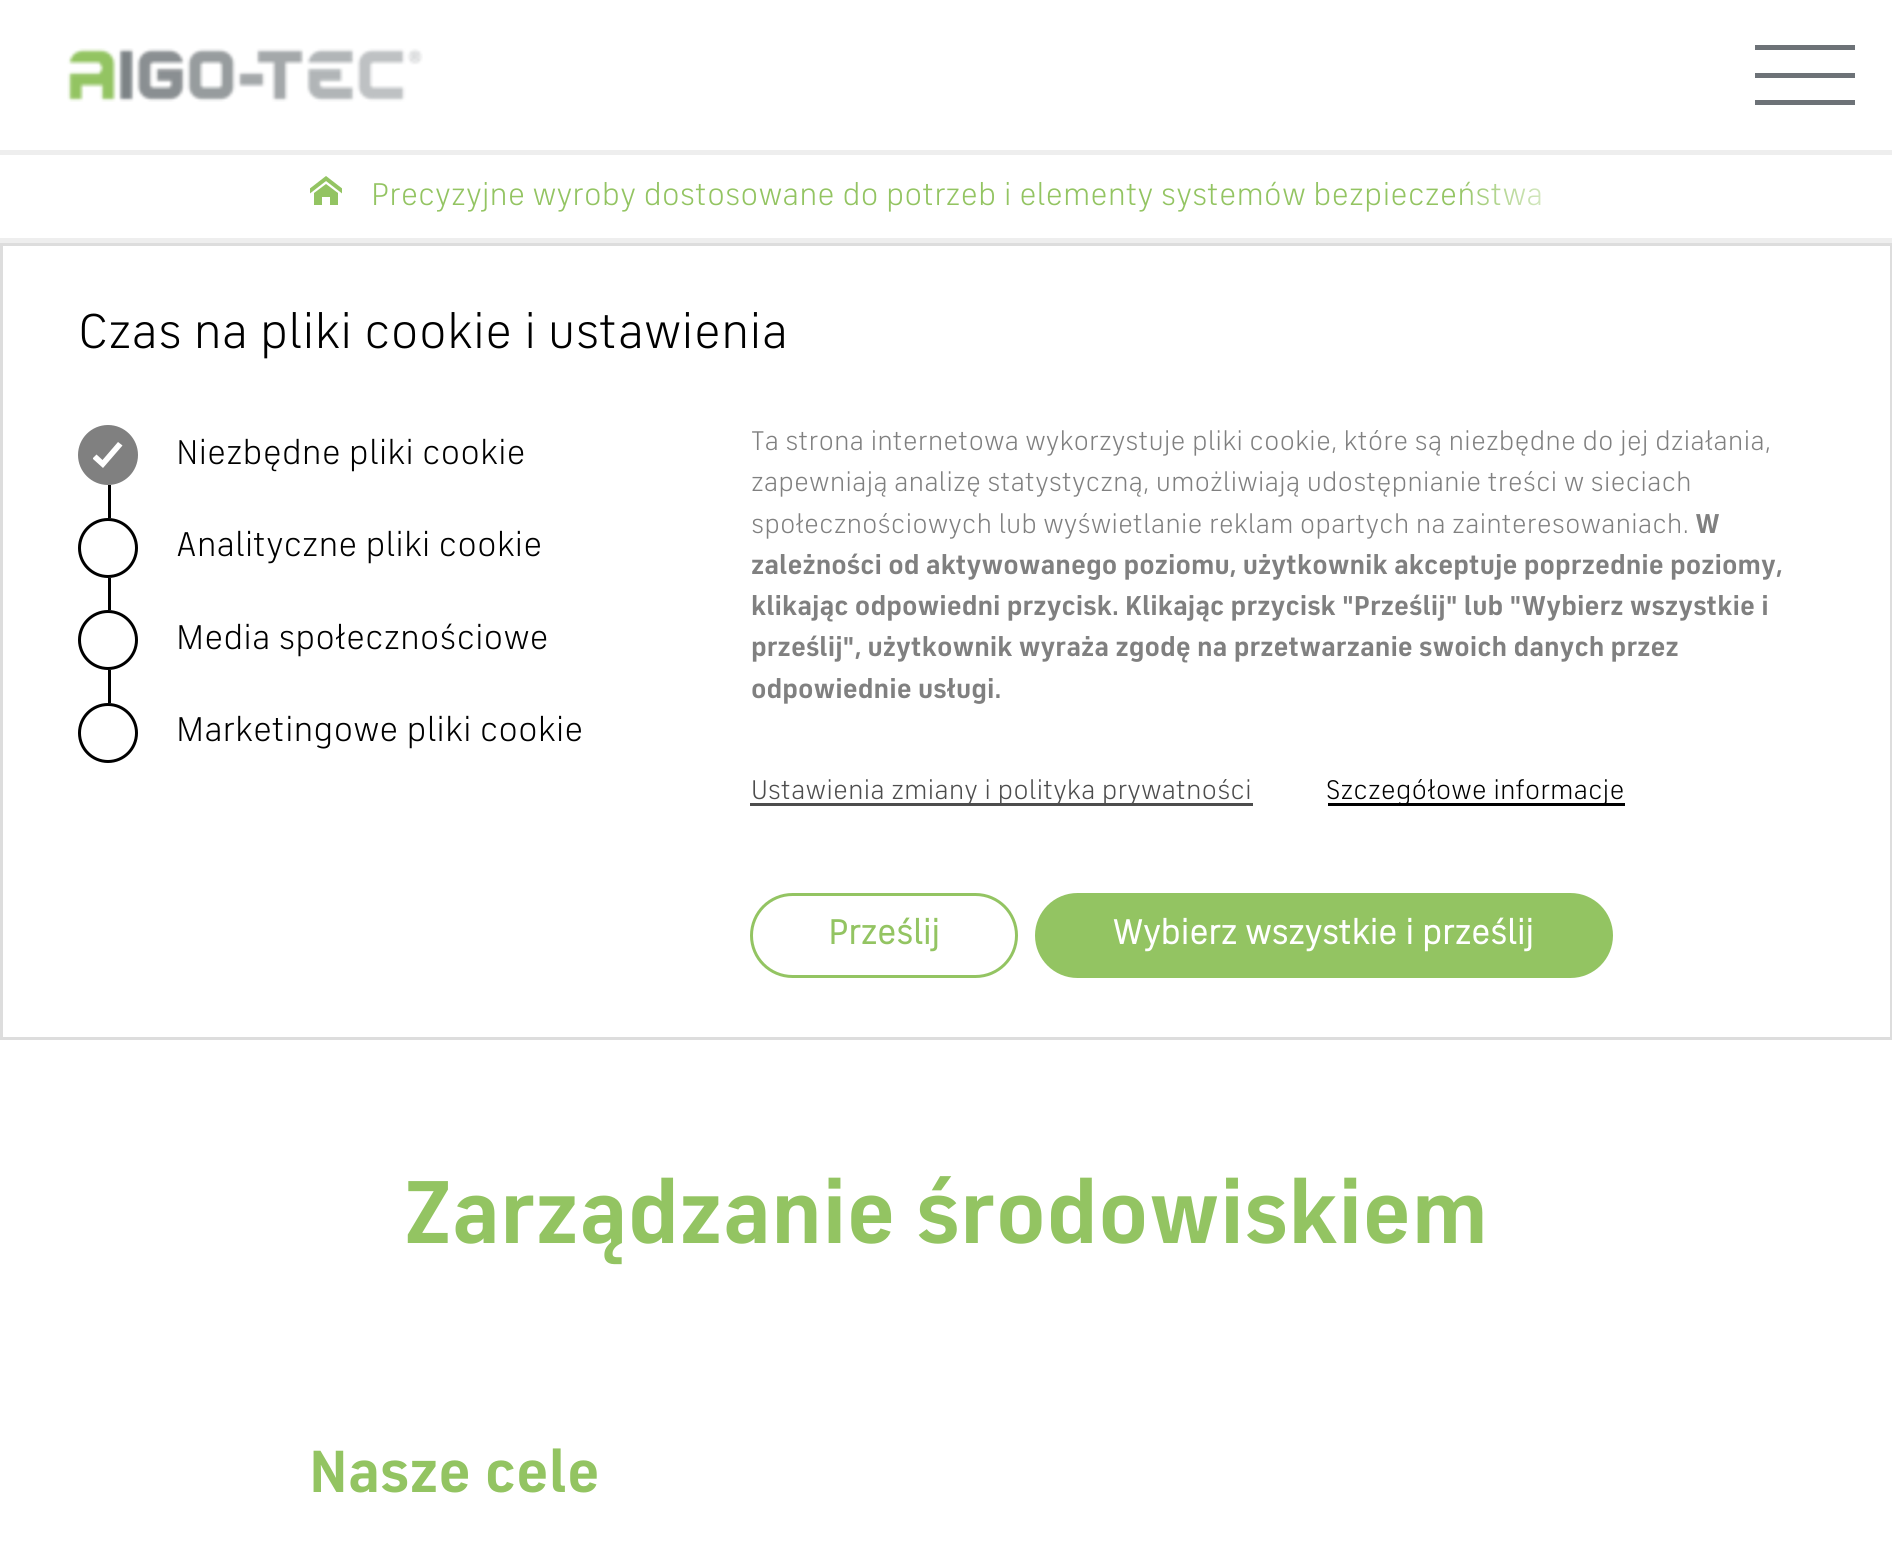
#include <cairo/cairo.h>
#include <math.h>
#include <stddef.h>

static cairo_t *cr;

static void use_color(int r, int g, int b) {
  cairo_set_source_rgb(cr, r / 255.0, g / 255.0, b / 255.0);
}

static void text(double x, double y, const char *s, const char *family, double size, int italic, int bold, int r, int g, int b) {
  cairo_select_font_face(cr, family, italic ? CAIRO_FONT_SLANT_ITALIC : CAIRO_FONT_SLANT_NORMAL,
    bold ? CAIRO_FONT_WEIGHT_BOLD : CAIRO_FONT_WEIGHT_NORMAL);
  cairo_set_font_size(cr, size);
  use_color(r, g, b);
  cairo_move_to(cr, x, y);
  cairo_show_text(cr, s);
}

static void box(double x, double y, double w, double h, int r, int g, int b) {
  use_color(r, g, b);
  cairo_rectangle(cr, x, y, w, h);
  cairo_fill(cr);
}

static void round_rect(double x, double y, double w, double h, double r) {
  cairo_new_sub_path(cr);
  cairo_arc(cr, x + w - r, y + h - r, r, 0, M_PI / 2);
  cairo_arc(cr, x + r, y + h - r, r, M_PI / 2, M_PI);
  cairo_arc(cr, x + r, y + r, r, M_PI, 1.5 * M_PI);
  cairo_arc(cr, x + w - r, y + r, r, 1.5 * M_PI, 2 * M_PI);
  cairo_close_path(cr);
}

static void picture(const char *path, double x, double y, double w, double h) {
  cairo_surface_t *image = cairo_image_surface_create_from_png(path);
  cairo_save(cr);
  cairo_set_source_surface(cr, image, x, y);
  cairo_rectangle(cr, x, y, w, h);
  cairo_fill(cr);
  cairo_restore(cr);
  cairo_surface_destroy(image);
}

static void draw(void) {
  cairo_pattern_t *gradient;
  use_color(255, 255, 255);
  cairo_paint(cr);
  picture("img_01.png", 67, 48, 356, 54);
  box(1755, 45, 100, 5, 109, 114, 119);
  box(1755, 73, 100, 5, 109, 114, 119);
  box(1755, 100, 100, 5, 109, 114, 119);
  box(0, 150, 1892, 5, 238, 238, 238);
  box(0, 238, 1892, 5, 238, 238, 238);
  picture("img_02.png", 310, 176, 32, 29);
  cairo_rectangle(cr, 1.5, 244.5, 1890, 794);
  use_color(221, 221, 221);
  cairo_set_line_width(cr, 3);
  cairo_stroke(cr);
  use_color(128, 128, 128);
  cairo_arc(cr, 108, 455, 28.5, 0, 2 * M_PI);
  cairo_fill_preserve(cr);
  cairo_stroke(cr);
  use_color(255, 255, 255);
  cairo_new_path(cr);
  cairo_move_to(cr, 103, 468);
  cairo_line_to(cr, 93, 459);
  cairo_line_to(cr, 93, 458);
  cairo_line_to(cr, 96.5, 454.5);
  cairo_line_to(cr, 102.5, 460);
  cairo_line_to(cr, 118, 442);
  cairo_line_to(cr, 122.5, 445.5);
  cairo_close_path(cr);
  cairo_fill(cr);
  box(108, 485, 3, 33, 0, 0, 0);
  cairo_arc(cr, 108, 548, 28.5, 0, 2 * M_PI);
  cairo_stroke(cr);
  box(108, 578, 3, 32, 0, 0, 0);
  cairo_arc(cr, 108, 640, 28.5, 0, 2 * M_PI);
  cairo_stroke(cr);
  box(108, 670, 3, 33, 0, 0, 0);
  cairo_arc(cr, 108, 733, 28.5, 0, 2 * M_PI);
  cairo_stroke(cr);
  box(750, 803, 503, 3, 77, 77, 77);
  box(1328, 803, 297, 3, 0, 0, 0);
  round_rect(751.5, 894.5, 265, 82, 41);
  use_color(147, 196, 98);
  cairo_stroke(cr);
  round_rect(1036.5, 894.5, 575, 82, 41);
  cairo_fill_preserve(cr);
  cairo_stroke(cr);
  text(371, 205, "Precyzyjne wyroby dostosowane do potrzeb i elementy systemów bezpieczeństwa", "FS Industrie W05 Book", 32, 0, 0, 147, 196, 98);
  gradient = cairo_pattern_create_linear(1453, 196, 1603, 196);
  cairo_pattern_add_color_stop_rgba(gradient, 0, 1, 1, 1, 0);
  cairo_pattern_add_color_stop_rgba(gradient, 1, 1, 1, 1, 1);
  cairo_set_source(cr, gradient);
  cairo_pattern_destroy(gradient);
  cairo_rectangle(cr, 1460, 181, 81, 25);
  cairo_fill(cr);
  text(78, 348, "Czas na pliki cookie i ustawienia", "FS Industrie W05 Book", 50, 0, 0, 0, 0, 0);
  text(176, 464, "Niezbędne pliki cookie", "FS Industrie W05 Book", 35, 0, 0, 0, 0, 0);
  text(176, 556, "Analityczne pliki cookie", "FS Industrie W05 Book", 35, 0, 0, 0, 0, 0);
  text(176, 649, "Media społecznościowe", "FS Industrie W05 Book", 35, 0, 0, 0, 0, 0);
  text(176, 741, "Marketingowe pliki cookie", "FS Industrie W05 Book", 35, 0, 0, 0, 0, 0);
  text(751, 450, "Ta strona internetowa wykorzystuje pliki cookie, które są niezbędne do jej działania,", "FS Industrie W05 Book", 27.5, 0, 0, 128, 128, 128);
  text(751, 491, "zapewniają analizę statystyczną, umożliwiają udostępnianie treści w sieciach", "FS Industrie W05 Book", 27.5, 0, 0, 128, 128, 128);
  text(751, 533, "społecznościowych lub wyświetlanie reklam opartych na zainteresowaniach.", "FS Industrie W05 Book", 27.5, 0, 0, 128, 128, 128);
  text(1695, 533, "W", "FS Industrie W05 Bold", 27.5, 0, 1, 128, 128, 128);
  text(751, 574, "zależności od aktywowanego poziomu, użytkownik akceptuje poprzednie poziomy,", "FS Industrie W05 Bold", 27.5, 0, 1, 128, 128, 128);
  text(751, 615, "klikając odpowiedni przycisk. Klikając przycisk \"Prześlij\" lub \"Wybierz wszystkie i", "FS Industrie W05 Bold", 27.5, 0, 1, 128, 128, 128);
  text(751, 656, "prześlij\", użytkownik wyraża zgodę na przetwarzanie swoich danych przez", "FS Industrie W05 Bold", 27.5, 0, 1, 128, 128, 128);
  text(751, 698, "odpowiednie usługi.", "FS Industrie W05 Bold", 27.5, 0, 1, 128, 128, 128);
  text(751, 799, "Ustawienia zmiany i polityka prywatności", "FS Industrie W05 Book", 27.5, 0, 0, 77, 77, 77);
  text(1326, 799, "Szczegółowe informacje", "FS Industrie W05 Book", 27.5, 0, 0, 0, 0, 0);
  text(828, 944, "Prześlij", "FS Industrie W05 Book", 35, 0, 1, 147, 196, 98);
  text(1112, 944, "Wybierz wszystkie i prześlij", "FS Industrie W05 Book", 35, 0, 1, 255, 255, 255);
  text(404, 1243, "Zarządzanie środowiskiem", "FS Industrie W05 Bold", 90, 0, 1, 147, 196, 98);
  text(309, 1492, "Nasze cele", "FS Industrie W05 Bold", 60, 0, 1, 147, 196, 98);
}

int main(void) {
  cairo_surface_t *surface = cairo_image_surface_create(CAIRO_FORMAT_RGB24, 1892, 1564);
  cr = cairo_create(surface);
  cairo_font_options_t *options = cairo_font_options_create();
  cairo_font_options_set_hint_metrics(options, CAIRO_HINT_METRICS_OFF);
  cairo_font_options_set_hint_style(options, CAIRO_HINT_STYLE_NONE);
  cairo_set_font_options(cr, options);
  cairo_set_miter_limit(cr, 4);
  draw();
  cairo_surface_write_to_png(surface, "out.png");
  cairo_font_options_destroy(options);
  cairo_destroy(cr);
  cairo_surface_destroy(surface);
  return 0;
}
